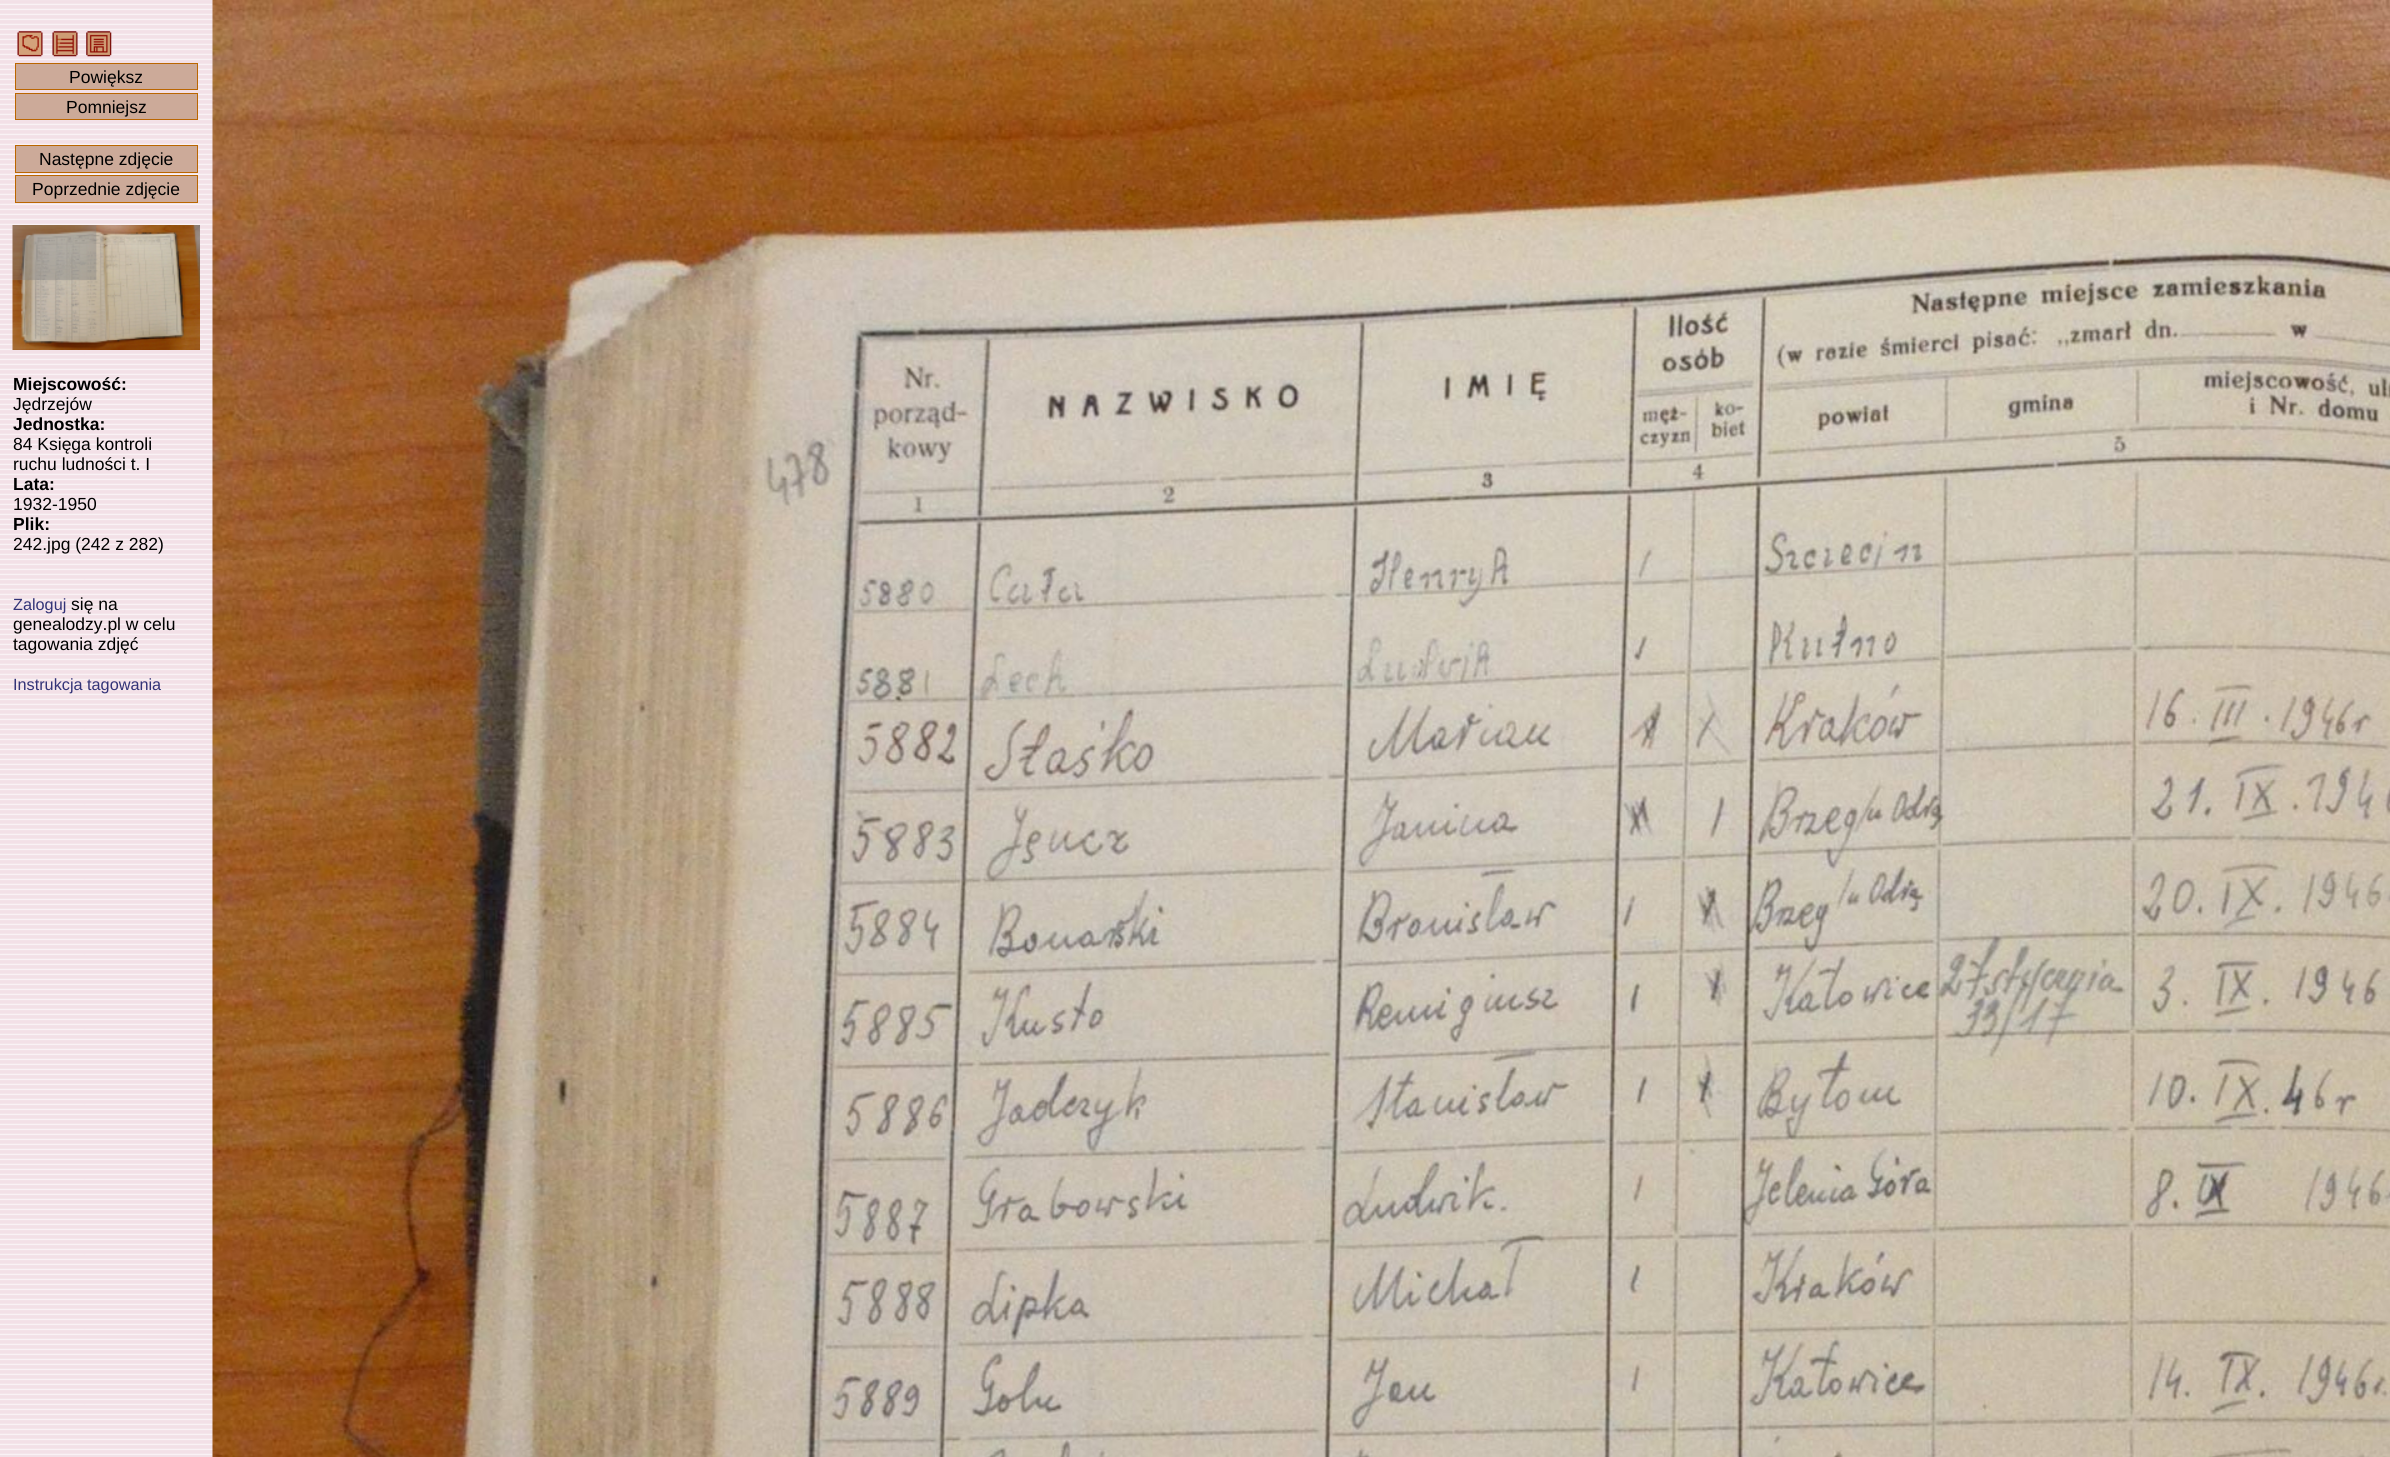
#include <cairo/cairo.h>
#include <math.h>
#include <stddef.h>

static cairo_t *cr;

static void use_color(int r, int g, int b) {
  cairo_set_source_rgb(cr, r / 255.0, g / 255.0, b / 255.0);
}

static void text(double x, double y, const char *s, const char *family, double size, int italic, int bold, int r, int g, int b) {
  cairo_select_font_face(cr, family, italic ? CAIRO_FONT_SLANT_ITALIC : CAIRO_FONT_SLANT_NORMAL,
    bold ? CAIRO_FONT_WEIGHT_BOLD : CAIRO_FONT_WEIGHT_NORMAL);
  cairo_set_font_size(cr, size);
  use_color(r, g, b);
  cairo_move_to(cr, x, y);
  cairo_show_text(cr, s);
}

static void picture(const char *path, double x, double y, double w, double h) {
  cairo_surface_t *image = cairo_image_surface_create_from_png(path);
  cairo_save(cr);
  cairo_set_source_surface(cr, image, x, y);
  cairo_rectangle(cr, x, y, w, h);
  cairo_fill(cr);
  cairo_restore(cr);
  cairo_surface_destroy(image);
}

static void draw(void) {
  use_color(255, 255, 255);
  cairo_paint(cr);
  picture("img_01.png", 0, 0, 213, 1457);
  picture("img_02.png", 17, 31, 26, 26);
  picture("img_03.png", 52, 31, 26, 26);
  picture("img_04.png", 86, 31, 26, 26);
  use_color(204, 170, 153);
  cairo_rectangle(cr, 15.5, 63.5, 182, 26);
  cairo_fill_preserve(cr);
  use_color(187, 102, 0);
  cairo_set_line_width(cr, 1);
  cairo_stroke(cr);
  use_color(204, 170, 153);
  cairo_rectangle(cr, 15.5, 93.5, 182, 26);
  cairo_fill_preserve(cr);
  use_color(187, 102, 0);
  cairo_stroke(cr);
  use_color(204, 170, 153);
  cairo_rectangle(cr, 15.5, 145.5, 182, 27);
  cairo_fill_preserve(cr);
  use_color(187, 102, 0);
  cairo_stroke(cr);
  use_color(204, 170, 153);
  cairo_rectangle(cr, 15.5, 175.5, 182, 27);
  cairo_fill_preserve(cr);
  use_color(187, 102, 0);
  cairo_stroke(cr);
  picture("img_05.png", 12, 225, 188, 125);
  picture("img_06.png", 212, 0, 2178, 1457);
  text(69, 83, "Powiększ", "Liberation Sans", 17.5, 0, 0, 0, 0, 0);
  text(66, 113, "Pomniejsz", "Liberation Sans", 17.5, 0, 0, 0, 0, 0);
  text(39, 165, "Następne zdjęcie", "Liberation Sans", 17.5, 0, 0, 0, 0, 0);
  text(32, 195, "Poprzednie zdjęcie", "Liberation Sans", 17.5, 0, 0, 0, 0, 0);
  text(13, 390, "Miejscowość:", "Liberation Sans", 17.5, 0, 1, 0, 0, 0);
  text(13, 410, "Jędrzejów", "Liberation Sans", 17.5, 0, 0, 0, 0, 0);
  text(13, 430, "Jednostka:", "Liberation Sans", 17.5, 0, 1, 0, 0, 0);
  text(13, 450, "84 Księga kontroli", "Liberation Sans", 17.5, 0, 0, 0, 0, 0);
  text(13, 470, "ruchu ludności t. I", "Liberation Sans", 17.5, 0, 0, 0, 0, 0);
  text(13, 490, "Lata:", "Liberation Sans", 17.5, 0, 1, 0, 0, 0);
  text(13, 510, "1932-1950", "Liberation Sans", 17.5, 0, 0, 0, 0, 0);
  text(13, 530, "Plik:", "Liberation Sans", 17.5, 0, 1, 0, 0, 0);
  text(13, 550, "242.jpg (242 z 282)", "Liberation Sans", 17.5, 0, 0, 0, 0, 0);
  text(13, 610, "Zaloguj", "Liberation Sans", 16.25, 0, 0, 51, 51, 119);
  text(71, 610, "się na", "Liberation Sans", 17.5, 0, 0, 0, 0, 0);
  text(13, 630, "genealodzy.pl w celu", "Liberation Sans", 17.5, 0, 0, 0, 0, 0);
  text(13, 650, "tagowania zdjęć", "Liberation Sans", 17.5, 0, 0, 0, 0, 0);
  text(13, 690, "Instrukcja tagowania", "Liberation Sans", 16.25, 0, 0, 51, 51, 119);
}

int main(void) {
  cairo_surface_t *surface = cairo_image_surface_create(CAIRO_FORMAT_RGB24, 2390, 1457);
  cr = cairo_create(surface);
  cairo_font_options_t *options = cairo_font_options_create();
  cairo_font_options_set_hint_metrics(options, CAIRO_HINT_METRICS_OFF);
  cairo_font_options_set_hint_style(options, CAIRO_HINT_STYLE_NONE);
  cairo_set_font_options(cr, options);
  cairo_set_miter_limit(cr, 4);
  draw();
  cairo_surface_write_to_png(surface, "out.png");
  cairo_font_options_destroy(options);
  cairo_destroy(cr);
  cairo_surface_destroy(surface);
  return 0;
}
